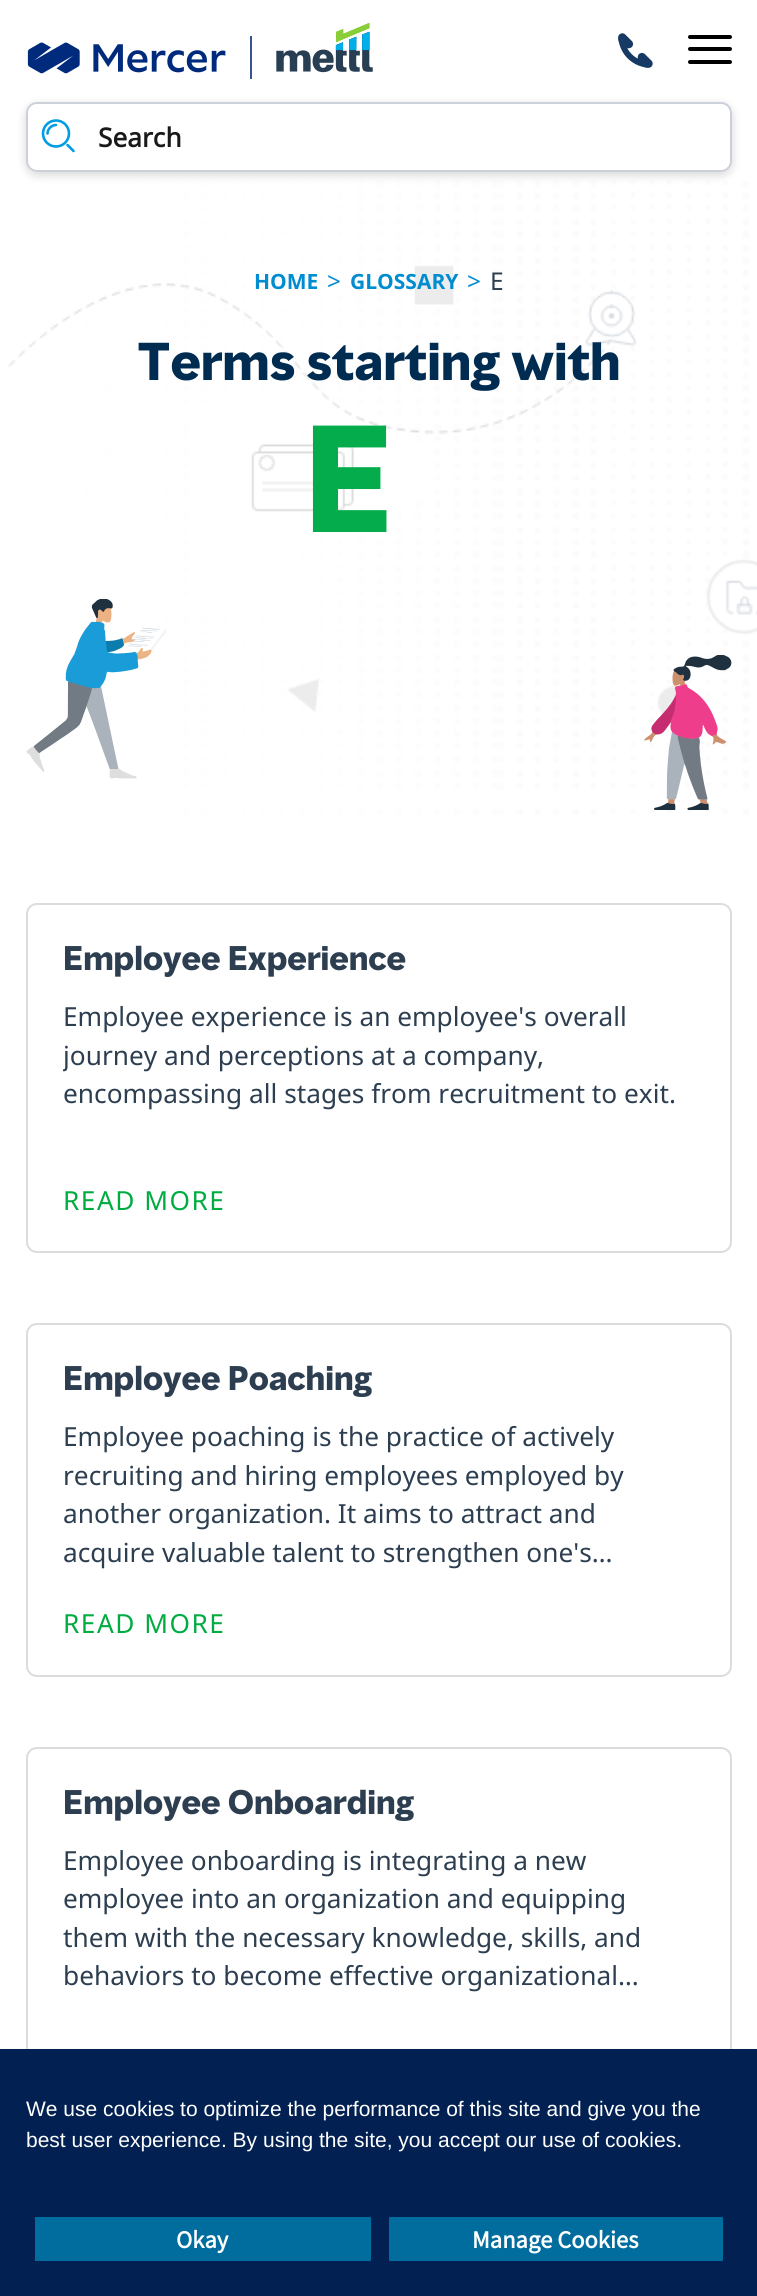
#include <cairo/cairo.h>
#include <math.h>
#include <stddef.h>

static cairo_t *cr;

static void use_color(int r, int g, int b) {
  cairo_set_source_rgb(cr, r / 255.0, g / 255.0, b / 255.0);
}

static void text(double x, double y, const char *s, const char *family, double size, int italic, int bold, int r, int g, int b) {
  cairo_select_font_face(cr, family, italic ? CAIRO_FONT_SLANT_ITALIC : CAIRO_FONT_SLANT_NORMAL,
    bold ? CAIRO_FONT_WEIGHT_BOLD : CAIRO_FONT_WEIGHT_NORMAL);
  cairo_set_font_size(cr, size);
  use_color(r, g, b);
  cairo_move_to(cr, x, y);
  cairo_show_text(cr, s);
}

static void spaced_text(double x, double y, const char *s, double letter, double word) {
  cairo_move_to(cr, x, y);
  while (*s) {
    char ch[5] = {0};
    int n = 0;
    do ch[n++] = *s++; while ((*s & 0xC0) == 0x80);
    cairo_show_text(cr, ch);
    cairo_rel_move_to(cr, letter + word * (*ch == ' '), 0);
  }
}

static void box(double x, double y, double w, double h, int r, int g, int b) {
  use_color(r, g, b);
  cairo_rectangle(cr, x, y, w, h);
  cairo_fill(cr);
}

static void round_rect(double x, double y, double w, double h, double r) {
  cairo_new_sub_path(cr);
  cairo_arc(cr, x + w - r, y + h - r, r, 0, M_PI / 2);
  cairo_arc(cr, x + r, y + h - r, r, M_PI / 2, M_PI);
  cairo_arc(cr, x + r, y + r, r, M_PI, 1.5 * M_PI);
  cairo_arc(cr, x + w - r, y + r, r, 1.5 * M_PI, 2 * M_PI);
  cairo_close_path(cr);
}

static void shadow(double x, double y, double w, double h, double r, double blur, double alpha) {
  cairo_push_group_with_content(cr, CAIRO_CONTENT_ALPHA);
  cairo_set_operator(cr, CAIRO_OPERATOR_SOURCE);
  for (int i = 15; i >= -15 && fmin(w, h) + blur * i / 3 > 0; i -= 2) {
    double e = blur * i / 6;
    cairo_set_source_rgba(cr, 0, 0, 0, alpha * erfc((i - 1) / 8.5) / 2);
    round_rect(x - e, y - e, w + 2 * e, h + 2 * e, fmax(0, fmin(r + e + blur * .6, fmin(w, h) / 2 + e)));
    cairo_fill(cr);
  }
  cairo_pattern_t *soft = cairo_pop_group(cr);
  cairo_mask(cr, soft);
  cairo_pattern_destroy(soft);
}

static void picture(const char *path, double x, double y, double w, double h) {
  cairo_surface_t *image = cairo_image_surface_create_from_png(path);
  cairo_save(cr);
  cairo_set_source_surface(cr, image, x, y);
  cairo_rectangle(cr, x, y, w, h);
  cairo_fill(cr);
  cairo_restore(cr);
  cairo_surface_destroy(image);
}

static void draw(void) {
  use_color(255, 255, 255);
  cairo_paint(cr);
  picture("img_01.png", 27, 23, 346, 56);
  picture("img_02.png", 618, 33, 35, 35);
  use_color(0, 0, 0);
  round_rect(688, 35, 44, 4, 2);
  cairo_fill(cr);
  round_rect(688, 47, 44, 4, 2);
  cairo_fill(cr);
  round_rect(688, 60, 44, 4, 2);
  cairo_fill(cr);
  picture("img_03.png", 8, 181, 749, 634);
  use_color(0, 0, 0);
  shadow(26, 105, 706, 70, 11, 5, 0.16);
  use_color(255, 255, 255);
  round_rect(26, 102, 706, 70, 11);
  cairo_fill(cr);
  cairo_new_path(cr);
  cairo_move_to(cr, 73.5, 151);
  cairo_line_to(cr, 67.5, 145);
  cairo_move_to(cr, 47.5, 133.5);
  cairo_curve_to(cr, 47.5, 129, 51.5, 125, 56, 125);
  use_color(0, 157, 224);
  cairo_set_line_width(cr, 2.6);
  cairo_set_line_cap(cr, CAIRO_LINE_CAP_ROUND);
  cairo_set_line_join(cr, CAIRO_LINE_JOIN_ROUND);
  cairo_stroke(cr);
  cairo_arc(cr, 56, 133.5, 13, 0, 2 * M_PI);
  cairo_set_line_cap(cr, CAIRO_LINE_CAP_BUTT);
  cairo_set_line_join(cr, CAIRO_LINE_JOIN_MITER);
  cairo_stroke(cr);
  round_rect(27, 103, 704, 68, 10);
  use_color(203, 208, 217);
  cairo_set_line_width(cr, 2);
  cairo_stroke(cr);
  picture("img_04.png", 26, 599, 140, 180);
  picture("img_05.png", 644, 655, 88, 155);
  round_rect(27, 904, 704, 348, 10);
  use_color(220, 220, 220);
  cairo_stroke(cr);
  round_rect(27, 1324, 704, 352, 10);
  cairo_stroke(cr);
  round_rect(27, 1748, 704, 351, 10);
  cairo_stroke(cr);
  box(0, 2049, 757, 247, 2, 33, 82);
  box(35, 2217, 336, 44, 0, 109, 158);
  box(389, 2217, 334, 44, 0, 109, 158);
  text(98, 147, "Search", "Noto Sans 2", 26.25, 0, 1, 26, 24, 24);
  text(254, 289, "HOME", "Noto Sans", 21, 0, 1, 0, 140, 208);
  text(327, 290, ">", "Noto Sans", 24.5, 0, 0, 0, 140, 208);
  text(350, 289, "GLOSSARY", "Noto Sans", 21, 0, 1, 0, 140, 208);
  text(467, 290, ">", "Noto Sans", 24.5, 0, 0, 0, 140, 208);
  text(490, 290, "E", "Noto Sans", 24.5, 0, 0, 44, 62, 80);
  text(137, 380, "Terms starting with", "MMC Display", 49, 0, 1, 1, 44, 82);
  text(304, 532, "E", "MMC Display", 140, 0, 1, 5, 172, 75);
  text(63, 970, "Employee Experience", "MMC Display", 31.5, 0, 1, 44, 62, 80);
  text(63, 1026, "Employee experience is an employee's overall", "Noto Sans", 26.25, 0, 0, 44, 62, 80);
  cairo_save(cr);
  cairo_rectangle(cr, 63, 996, 632, 115);
  cairo_clip(cr);
  text(63, 1065, "journey and perceptions at a company,", "Noto Sans", 26.25, 0, 0, 44, 62, 80);
  cairo_restore(cr);
  text(63, 1103, "encompassing all stages from recruitment to exit.", "Noto Sans", 26.25, 0, 0, 44, 62, 80);
  use_color(0, 172, 65);
  spaced_text(63, 1210, "READ MORE", 1.5, 0);
  text(63, 1390, "Employee Poaching", "MMC Display", 31.5, 0, 1, 44, 62, 80);
  text(63, 1446, "Employee poaching is the practice of actively", "Noto Sans", 26.25, 0, 0, 44, 62, 80);
  text(63, 1485, "recruiting and hiring employees employed by", "Noto Sans", 26.25, 0, 0, 44, 62, 80);
  text(63, 1523, "another organization. It aims to attract and", "Noto Sans", 26.25, 0, 0, 44, 62, 80);
  text(63, 1562, "acquire valuable talent to strengthen one's…", "Noto Sans", 26.25, 0, 0, 44, 62, 80);
  use_color(0, 172, 65);
  spaced_text(63, 1633, "READ MORE", 1.5, 0);
  text(63, 1814, "Employee Onboarding", "MMC Display", 31.5, 0, 1, 44, 62, 80);
  text(63, 1870, "Employee onboarding is integrating a new", "Noto Sans", 26.25, 0, 0, 44, 62, 80);
  text(63, 1908, "employee into an organization and equipping", "Noto Sans", 26.25, 0, 0, 44, 62, 80);
  text(63, 1947, "them with the necessary knowledge, skills, and", "Noto Sans", 26.25, 0, 0, 44, 62, 80);
  text(63, 1985, "behaviors to become effective organizational…", "Noto Sans", 26.25, 0, 0, 44, 62, 80);
  text(26, 2116, "We use cookies to optimize the performance of this site and give you the", "Liberation Sans", 21, 0, 0, 255, 255, 255);
  text(26, 2147, "best user experience. By using the site, you accept our use of cookies.", "Liberation Sans", 21, 0, 0, 255, 255, 255);
  text(176, 2248, "Okay", "Source Sans Pro", 24.5, 0, 1, 255, 255, 255);
  text(472, 2248, "Manage Cookies", "Source Sans Pro", 24.5, 0, 1, 255, 255, 255);
}

int main(void) {
  cairo_surface_t *surface = cairo_image_surface_create(CAIRO_FORMAT_RGB24, 757, 2296);
  cr = cairo_create(surface);
  cairo_font_options_t *options = cairo_font_options_create();
  cairo_font_options_set_hint_metrics(options, CAIRO_HINT_METRICS_OFF);
  cairo_font_options_set_hint_style(options, CAIRO_HINT_STYLE_NONE);
  cairo_set_font_options(cr, options);
  cairo_set_miter_limit(cr, 4);
  draw();
  cairo_surface_write_to_png(surface, "out.png");
  cairo_font_options_destroy(options);
  cairo_destroy(cr);
  cairo_surface_destroy(surface);
  return 0;
}
